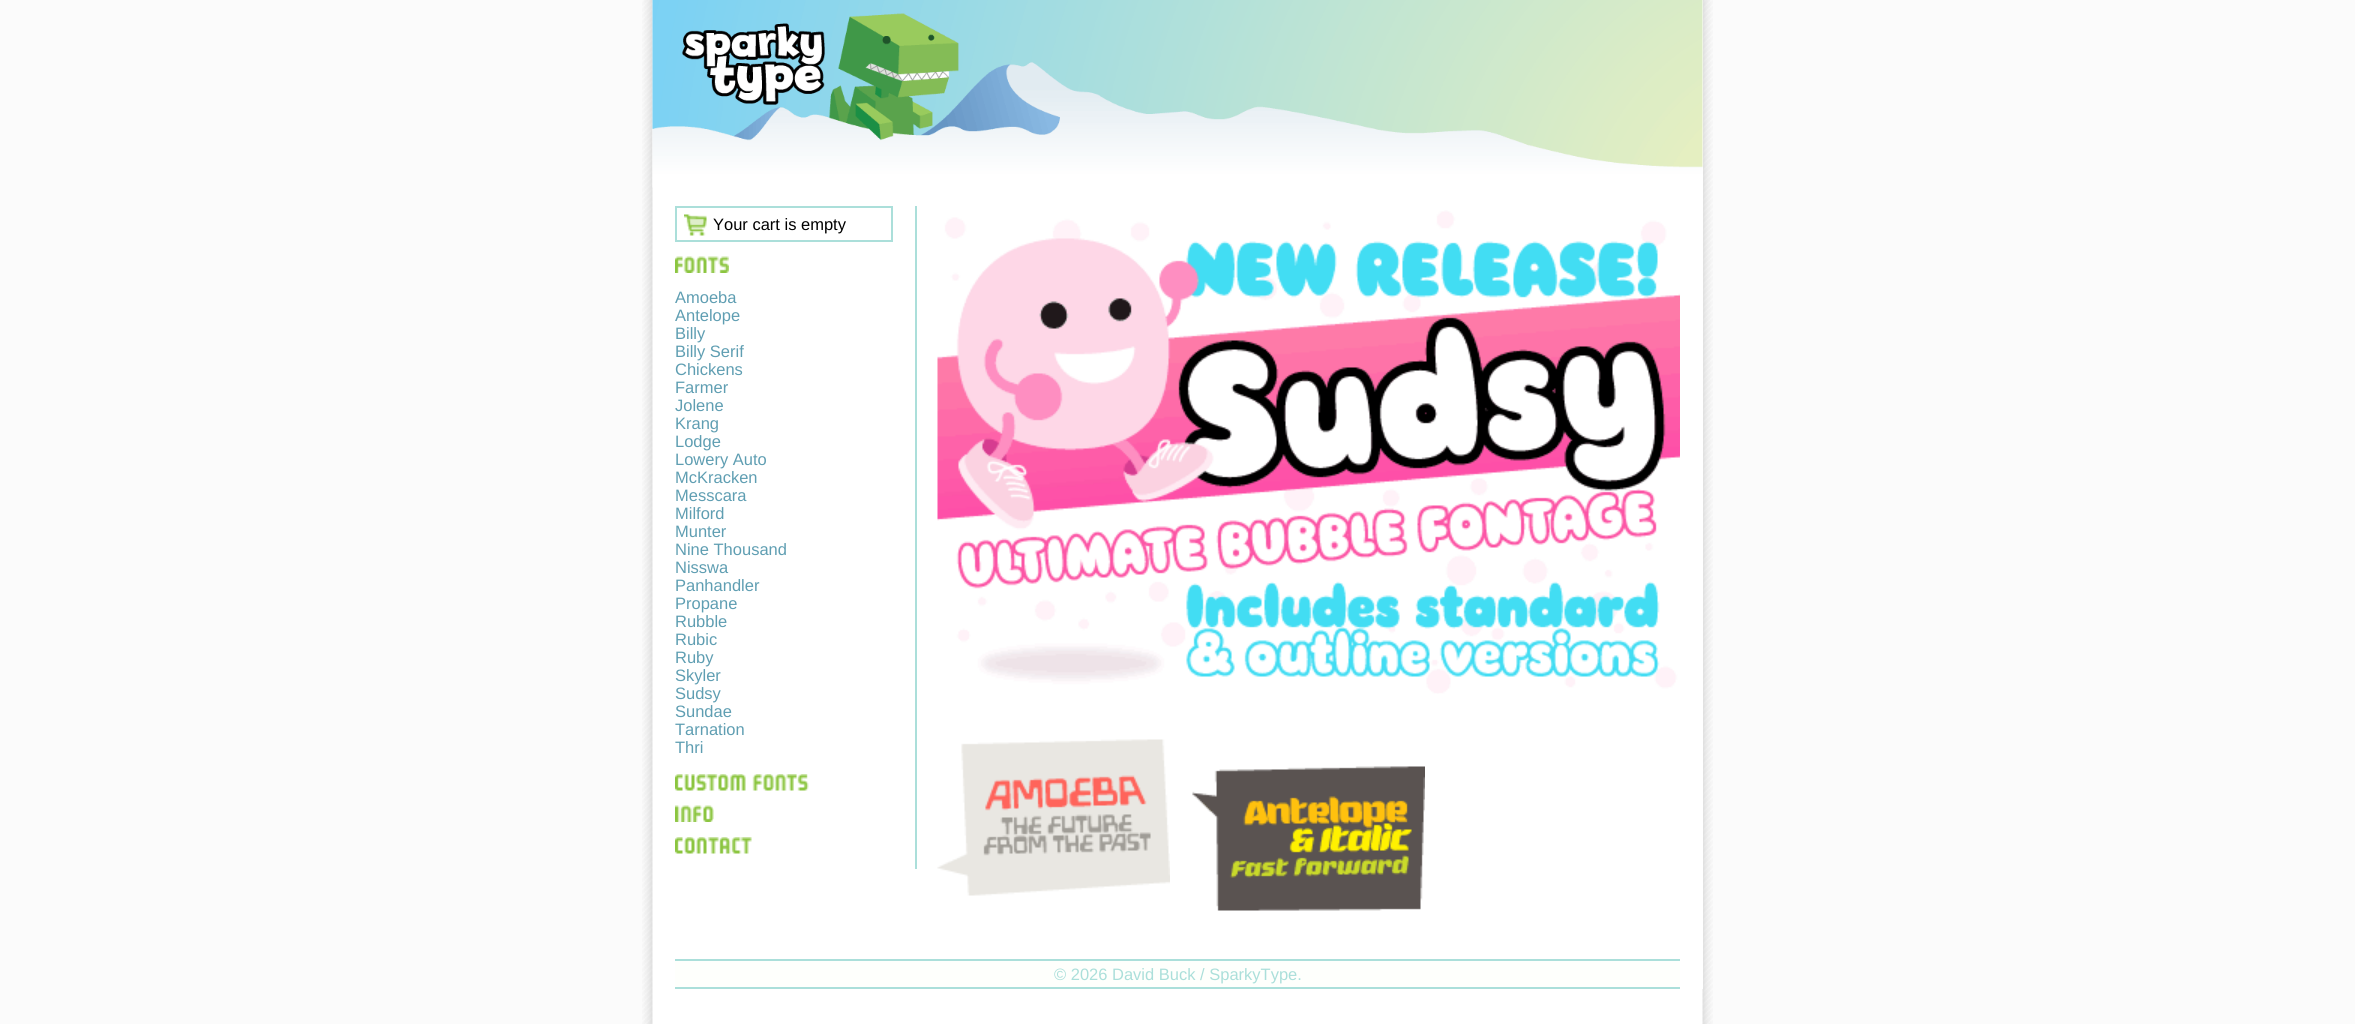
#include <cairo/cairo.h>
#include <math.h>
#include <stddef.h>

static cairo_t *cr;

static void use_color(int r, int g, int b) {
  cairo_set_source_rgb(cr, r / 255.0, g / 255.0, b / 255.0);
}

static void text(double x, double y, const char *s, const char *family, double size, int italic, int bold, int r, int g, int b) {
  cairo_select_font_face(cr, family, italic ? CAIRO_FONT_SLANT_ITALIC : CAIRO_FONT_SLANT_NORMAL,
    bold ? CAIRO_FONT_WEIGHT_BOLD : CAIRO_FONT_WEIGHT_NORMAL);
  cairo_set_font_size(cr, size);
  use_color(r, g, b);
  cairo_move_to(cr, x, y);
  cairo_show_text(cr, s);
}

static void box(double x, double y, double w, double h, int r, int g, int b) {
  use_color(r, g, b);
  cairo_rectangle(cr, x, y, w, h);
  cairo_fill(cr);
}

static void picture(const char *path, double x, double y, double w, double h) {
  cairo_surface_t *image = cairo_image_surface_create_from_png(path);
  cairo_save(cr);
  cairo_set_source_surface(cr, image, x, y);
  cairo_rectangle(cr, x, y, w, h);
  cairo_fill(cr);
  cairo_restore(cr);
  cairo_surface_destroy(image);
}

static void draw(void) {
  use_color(251, 251, 251);
  cairo_paint(cr);
  picture("img_01.png", 642, 0, 1071, 1024);
  box(1702, 0, 1, 989, 255, 255, 255);
  picture("img_02.png", 652, 0, 1051, 188);
  box(915, 206, 2, 663, 171, 223, 218);
  picture("img_03.png", 684, 214, 23, 22);
  cairo_rectangle(cr, 676, 207, 216, 34);
  cairo_stroke(cr);
  picture("img_04.png", 675, 256, 54, 17);
  picture("img_05.png", 675, 774, 134, 17);
  picture("img_06.png", 675, 805, 39, 17);
  picture("img_07.png", 675, 837, 77, 17);
  picture("img_08.png", 937, 210, 743, 484);
  picture("img_09.png", 937, 739, 233, 157);
  picture("img_10.png", 1192, 766, 233, 145);
  box(675, 961, 1005, 26, 254, 255, 252);
  box(675, 959, 1005, 2, 171, 223, 218);
  box(675, 987, 1005, 2, 171, 223, 218);
  text(713, 230, "Your cart is empty", "Liberation Sans", 16.5, 0, 0, 0, 0, 0);
  text(675, 303, "Amoeba", "Liberation Sans", 16.5, 0, 0, 95, 158, 178);
  text(675, 321, "Antelope", "Liberation Sans", 16.5, 0, 0, 95, 158, 178);
  text(675, 339, "Billy", "Liberation Sans", 16.5, 0, 0, 95, 158, 178);
  text(675, 357, "Billy Serif", "Liberation Sans", 16.5, 0, 0, 95, 158, 178);
  text(675, 375, "Chickens", "Liberation Sans", 16.5, 0, 0, 95, 158, 178);
  text(675, 393, "Farmer", "Liberation Sans", 16.5, 0, 0, 95, 158, 178);
  text(675, 411, "Jolene", "Liberation Sans", 16.5, 0, 0, 95, 158, 178);
  text(675, 429, "Krang", "Liberation Sans", 16.5, 0, 0, 95, 158, 178);
  text(675, 447, "Lodge", "Liberation Sans", 16.5, 0, 0, 95, 158, 178);
  text(675, 465, "Lowery Auto", "Liberation Sans", 16.5, 0, 0, 95, 158, 178);
  text(675, 483, "McKracken", "Liberation Sans", 16.5, 0, 0, 95, 158, 178);
  text(675, 501, "Messcara", "Liberation Sans", 16.5, 0, 0, 95, 158, 178);
  text(675, 519, "Milford", "Liberation Sans", 16.5, 0, 0, 95, 158, 178);
  text(675, 537, "Munter", "Liberation Sans", 16.5, 0, 0, 95, 158, 178);
  text(675, 555, "Nine Thousand", "Liberation Sans", 16.5, 0, 0, 95, 158, 178);
  text(675, 573, "Nisswa", "Liberation Sans", 16.5, 0, 0, 95, 158, 178);
  text(675, 591, "Panhandler", "Liberation Sans", 16.5, 0, 0, 95, 158, 178);
  text(675, 609, "Propane", "Liberation Sans", 16.5, 0, 0, 95, 158, 178);
  text(675, 627, "Rubble", "Liberation Sans", 16.5, 0, 0, 95, 158, 178);
  text(675, 645, "Rubic", "Liberation Sans", 16.5, 0, 0, 95, 158, 178);
  text(675, 663, "Ruby", "Liberation Sans", 16.5, 0, 0, 95, 158, 178);
  text(675, 681, "Skyler", "Liberation Sans", 16.5, 0, 0, 95, 158, 178);
  text(675, 699, "Sudsy", "Liberation Sans", 16.5, 0, 0, 95, 158, 178);
  text(675, 717, "Sundae", "Liberation Sans", 16.5, 0, 0, 95, 158, 178);
  text(675, 735, "Tarnation", "Liberation Sans", 16.5, 0, 0, 95, 158, 178);
  text(675, 753, "Thri", "Liberation Sans", 16.5, 0, 0, 95, 158, 178);
  text(1054, 980, "© 2026 David Buck / SparkyType.", "Liberation Sans", 16.5, 0, 0, 171, 223, 218);
}

int main(void) {
  cairo_surface_t *surface = cairo_image_surface_create(CAIRO_FORMAT_RGB24, 2355, 1024);
  cr = cairo_create(surface);
  cairo_font_options_t *options = cairo_font_options_create();
  cairo_font_options_set_hint_metrics(options, CAIRO_HINT_METRICS_OFF);
  cairo_font_options_set_hint_style(options, CAIRO_HINT_STYLE_NONE);
  cairo_set_font_options(cr, options);
  cairo_set_miter_limit(cr, 4);
  draw();
  cairo_surface_write_to_png(surface, "out.png");
  cairo_font_options_destroy(options);
  cairo_destroy(cr);
  cairo_surface_destroy(surface);
  return 0;
}
